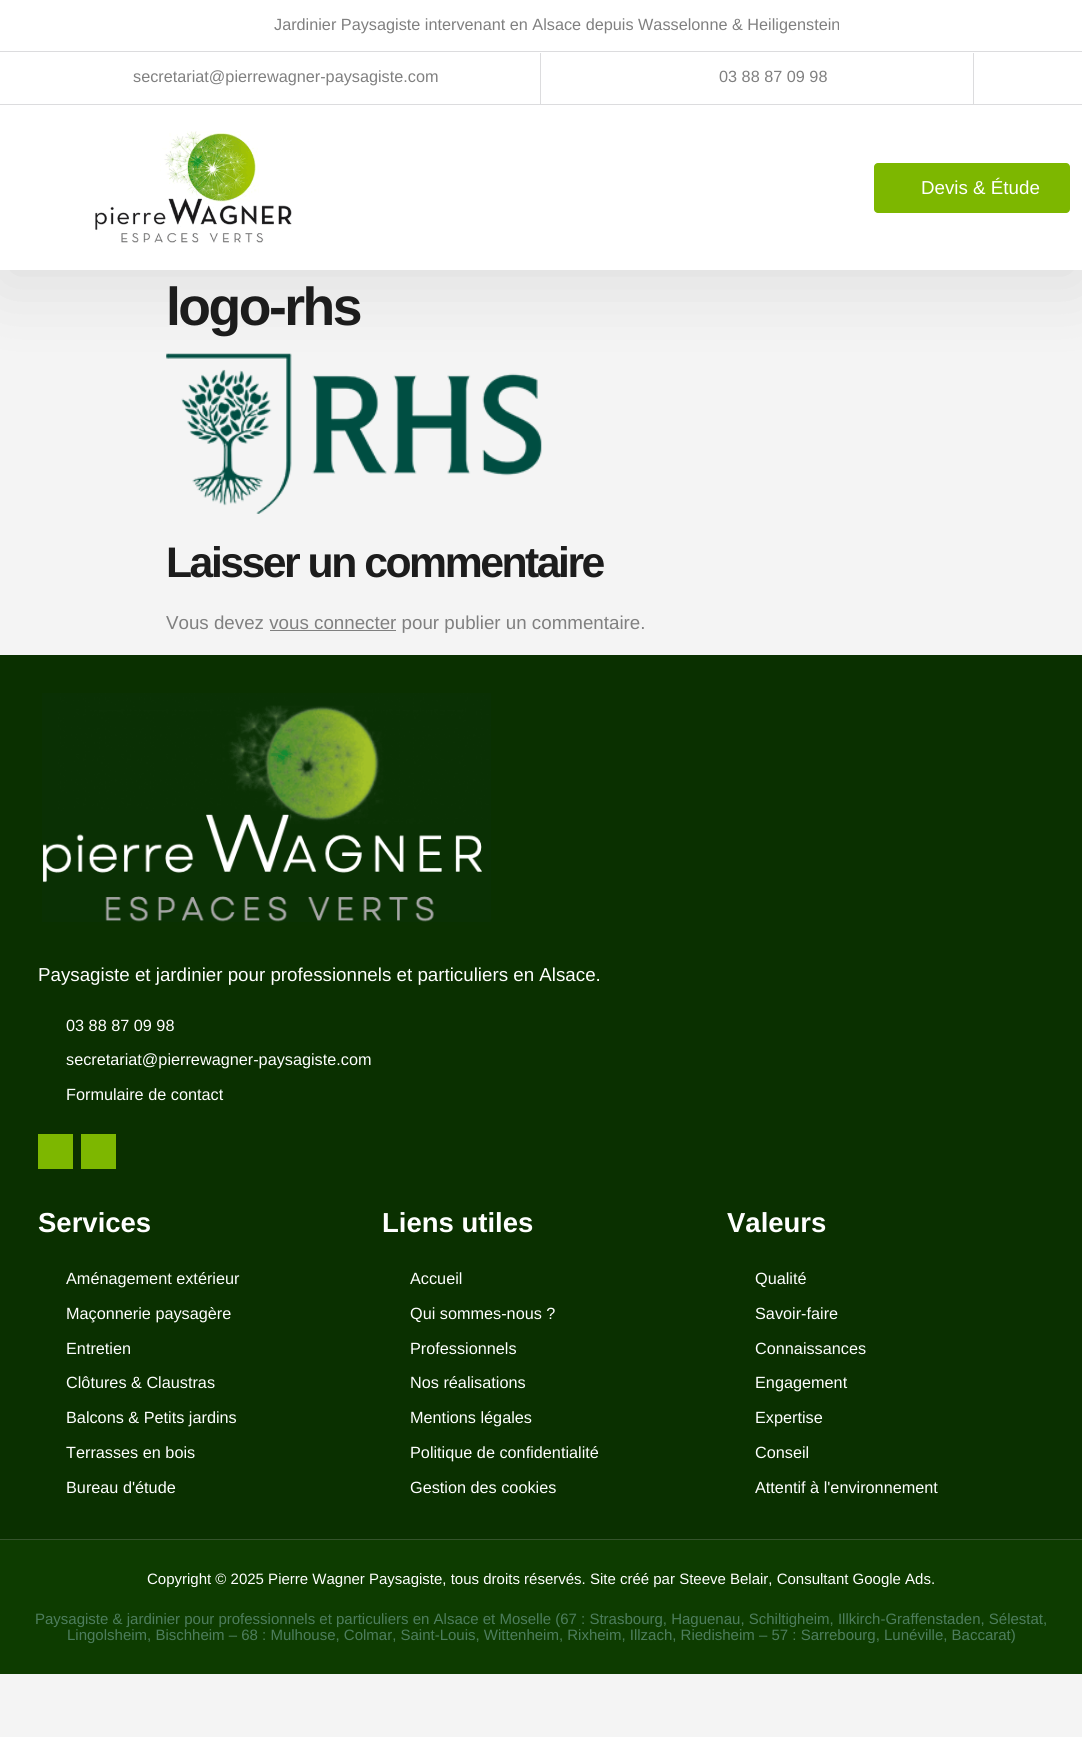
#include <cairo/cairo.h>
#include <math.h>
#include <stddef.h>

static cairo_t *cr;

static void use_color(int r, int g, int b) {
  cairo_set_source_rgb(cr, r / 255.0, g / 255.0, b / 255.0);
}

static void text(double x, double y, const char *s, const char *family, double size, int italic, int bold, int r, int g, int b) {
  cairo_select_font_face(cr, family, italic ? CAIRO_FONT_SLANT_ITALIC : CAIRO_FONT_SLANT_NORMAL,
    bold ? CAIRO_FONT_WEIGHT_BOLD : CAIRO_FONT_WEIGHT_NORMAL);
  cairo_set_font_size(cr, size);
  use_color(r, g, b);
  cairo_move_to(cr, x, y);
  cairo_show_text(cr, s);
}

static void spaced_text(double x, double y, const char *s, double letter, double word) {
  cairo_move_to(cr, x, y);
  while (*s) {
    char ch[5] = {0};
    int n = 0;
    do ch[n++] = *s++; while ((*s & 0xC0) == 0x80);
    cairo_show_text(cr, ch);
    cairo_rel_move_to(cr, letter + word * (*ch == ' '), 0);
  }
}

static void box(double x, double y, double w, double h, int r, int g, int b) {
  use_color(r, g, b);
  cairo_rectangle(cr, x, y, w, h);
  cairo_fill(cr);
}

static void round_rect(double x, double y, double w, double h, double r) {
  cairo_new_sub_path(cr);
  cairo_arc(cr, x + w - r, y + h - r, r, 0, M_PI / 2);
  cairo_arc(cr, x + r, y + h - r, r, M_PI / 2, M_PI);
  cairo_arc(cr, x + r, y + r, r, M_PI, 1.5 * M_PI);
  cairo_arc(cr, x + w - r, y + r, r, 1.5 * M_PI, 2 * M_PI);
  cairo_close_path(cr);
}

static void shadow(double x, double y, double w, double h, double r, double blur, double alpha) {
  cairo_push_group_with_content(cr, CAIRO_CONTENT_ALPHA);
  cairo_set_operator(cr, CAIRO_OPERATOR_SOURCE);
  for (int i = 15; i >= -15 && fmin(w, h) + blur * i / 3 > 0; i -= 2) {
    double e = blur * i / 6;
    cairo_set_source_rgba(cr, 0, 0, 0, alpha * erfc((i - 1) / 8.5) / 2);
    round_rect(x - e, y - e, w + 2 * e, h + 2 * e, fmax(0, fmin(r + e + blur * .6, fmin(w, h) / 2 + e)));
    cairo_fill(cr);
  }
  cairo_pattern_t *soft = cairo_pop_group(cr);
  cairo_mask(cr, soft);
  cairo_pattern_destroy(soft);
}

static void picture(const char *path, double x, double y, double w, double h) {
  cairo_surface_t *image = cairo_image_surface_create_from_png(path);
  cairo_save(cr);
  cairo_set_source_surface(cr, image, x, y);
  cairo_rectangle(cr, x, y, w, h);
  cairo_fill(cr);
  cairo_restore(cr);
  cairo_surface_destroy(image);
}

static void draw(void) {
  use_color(244, 244, 244);
  cairo_paint(cr);
  picture("img_02.png", 166, 353, 376, 161);
  use_color(0, 0, 0);
  shadow(0, 118, 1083, 165, 0, 37.5, 0.1);
  box(0, 0, 1082, 104, 255, 255, 255);
  box(0, 104, 1082, 1, 220, 220, 222);
  box(0, 51, 1082, 1, 220, 220, 222);
  box(540, 53, 1, 51, 220, 220, 222);
  box(973, 53, 1, 51, 220, 220, 222);
  box(0, 105, 1082, 165, 255, 255, 255);
  picture("img_01.png", 95, 131, 197, 112);
  use_color(125, 183, 0);
  round_rect(874, 163, 196, 50, 4);
  cairo_fill(cr);
  box(270, 630, 126, 1, 128, 128, 128);
  box(0, 655, 1082, 884, 10, 48, 0);
  box(0, 1539, 1082, 1, 52, 83, 43);
  picture("img_03.png", 42, 693, 449, 229);
  box(38, 1134, 35, 35, 125, 183, 0);
  box(81, 1134, 35, 35, 125, 183, 0);
  box(0, 1540, 1082, 134, 13, 60, 0);
  text(274, 30, "Jardinier Paysagiste intervenant en Alsace depuis Wasselonne & Heiligenstein", "Liberation Sans", 16.25, 0, 0, 128, 128, 128);
  text(133, 82, "secretariat@pierrewagner-paysagiste.com", "Liberation Sans", 16.25, 0, 0, 128, 128, 128);
  text(719, 82, "03 88 87 09 98", "Liberation Sans", 16.25, 0, 0, 128, 128, 128);
  text(921, 194, "Devis & Étude", "Liberation Sans", 18.75, 0, 0, 255, 255, 255);
  cairo_select_font_face(cr, "Liberation Sans", CAIRO_FONT_SLANT_NORMAL, CAIRO_FONT_WEIGHT_BOLD);
  cairo_set_font_size(cr, 53.5);
  use_color(28, 28, 28);
  spaced_text(166, 325, "logo-rhs", -2.5, 0);
  cairo_set_font_size(cr, 42.75);
  spaced_text(166, 577, "Laisser un commentaire", -2.5, 0);
  text(166, 629, "Vous devez vous connecter pour publier un commentaire.", "Liberation Sans", 18.75, 0, 0, 128, 128, 128);
  text(38, 981, "Paysagiste et jardinier pour professionnels et particuliers en Alsace.", "Liberation Sans", 18.75, 0, 0, 255, 255, 255);
  text(66, 1031, "03 88 87 09 98", "Liberation Sans", 16.25, 0, 0, 255, 255, 255);
  text(66, 1065, "secretariat@pierrewagner-paysagiste.com", "Liberation Sans", 16.25, 0, 0, 255, 255, 255);
  text(66, 1100, "Formulaire de contact", "Liberation Sans", 16.25, 0, 0, 255, 255, 255);
  text(38, 1232, "Services", "Liberation Sans", 27.5, 0, 1, 255, 255, 255);
  text(66, 1284, "Aménagement extérieur", "Liberation Sans", 16.25, 0, 0, 255, 255, 255);
  text(66, 1319, "Maçonnerie paysagère", "Liberation Sans", 16.25, 0, 0, 255, 255, 255);
  text(66, 1354, "Entretien", "Liberation Sans", 16.25, 0, 0, 255, 255, 255);
  text(66, 1388, "Clôtures & Claustras", "Liberation Sans", 16.25, 0, 0, 255, 255, 255);
  text(66, 1423, "Balcons & Petits jardins", "Liberation Sans", 16.25, 0, 0, 255, 255, 255);
  text(66, 1458, "Terrasses en bois", "Liberation Sans", 16.25, 0, 0, 255, 255, 255);
  text(66, 1493, "Bureau d'étude", "Liberation Sans", 16.25, 0, 0, 255, 255, 255);
  text(382, 1232, "Liens utiles", "Liberation Sans", 27.5, 0, 1, 255, 255, 255);
  text(410, 1284, "Accueil", "Liberation Sans", 16.25, 0, 0, 255, 255, 255);
  text(410, 1319, "Qui sommes-nous ?", "Liberation Sans", 16.25, 0, 0, 255, 255, 255);
  text(410, 1354, "Professionnels", "Liberation Sans", 16.25, 0, 0, 255, 255, 255);
  text(410, 1388, "Nos réalisations", "Liberation Sans", 16.25, 0, 0, 255, 255, 255);
  text(410, 1423, "Mentions légales", "Liberation Sans", 16.25, 0, 0, 255, 255, 255);
  text(410, 1458, "Politique de confidentialité", "Liberation Sans", 16.25, 0, 0, 255, 255, 255);
  text(410, 1493, "Gestion des cookies", "Liberation Sans", 16.25, 0, 0, 255, 255, 255);
  text(727, 1232, "Valeurs", "Liberation Sans", 27.5, 0, 1, 255, 255, 255);
  text(755, 1284, "Qualité", "Liberation Sans", 16.25, 0, 0, 255, 255, 255);
  text(755, 1319, "Savoir-faire", "Liberation Sans", 16.25, 0, 0, 255, 255, 255);
  text(755, 1354, "Connaissances", "Liberation Sans", 16.25, 0, 0, 255, 255, 255);
  text(755, 1388, "Engagement", "Liberation Sans", 16.25, 0, 0, 255, 255, 255);
  text(755, 1423, "Expertise", "Liberation Sans", 16.25, 0, 0, 255, 255, 255);
  text(755, 1458, "Conseil", "Liberation Sans", 16.25, 0, 0, 255, 255, 255);
  text(755, 1493, "Attentif à l'environnement", "Liberation Sans", 16.25, 0, 0, 255, 255, 255);
  text(147, 1584, "Copyright © 2025 Pierre Wagner Paysagiste, tous droits réservés. Site créé par Steeve Belair, Consultant Google Ads.", "Liberation Sans", 15, 0, 0, 255, 255, 255);
  text(35, 1624, "Paysagiste & jardinier pour professionnels et particuliers en Alsace et Moselle (67 : Strasbourg, Haguenau, Schiltigheim, Illkirch-Graffenstaden, Sélestat,", "Liberation Sans", 15, 0, 0, 77, 125, 93);
  text(67, 1640, "Lingolsheim, Bischheim – 68 : Mulhouse, Colmar, Saint-Louis, Wittenheim, Rixheim, Illzach, Riedisheim – 57 : Sarrebourg, Lunéville, Baccarat)", "Liberation Sans", 15, 0, 0, 77, 125, 93);
}

int main(void) {
  cairo_surface_t *surface = cairo_image_surface_create(CAIRO_FORMAT_RGB24, 1082, 1737);
  cr = cairo_create(surface);
  cairo_font_options_t *options = cairo_font_options_create();
  cairo_font_options_set_hint_metrics(options, CAIRO_HINT_METRICS_OFF);
  cairo_font_options_set_hint_style(options, CAIRO_HINT_STYLE_NONE);
  cairo_set_font_options(cr, options);
  cairo_set_miter_limit(cr, 4);
  draw();
  cairo_surface_write_to_png(surface, "out.png");
  cairo_font_options_destroy(options);
  cairo_destroy(cr);
  cairo_surface_destroy(surface);
  return 0;
}
